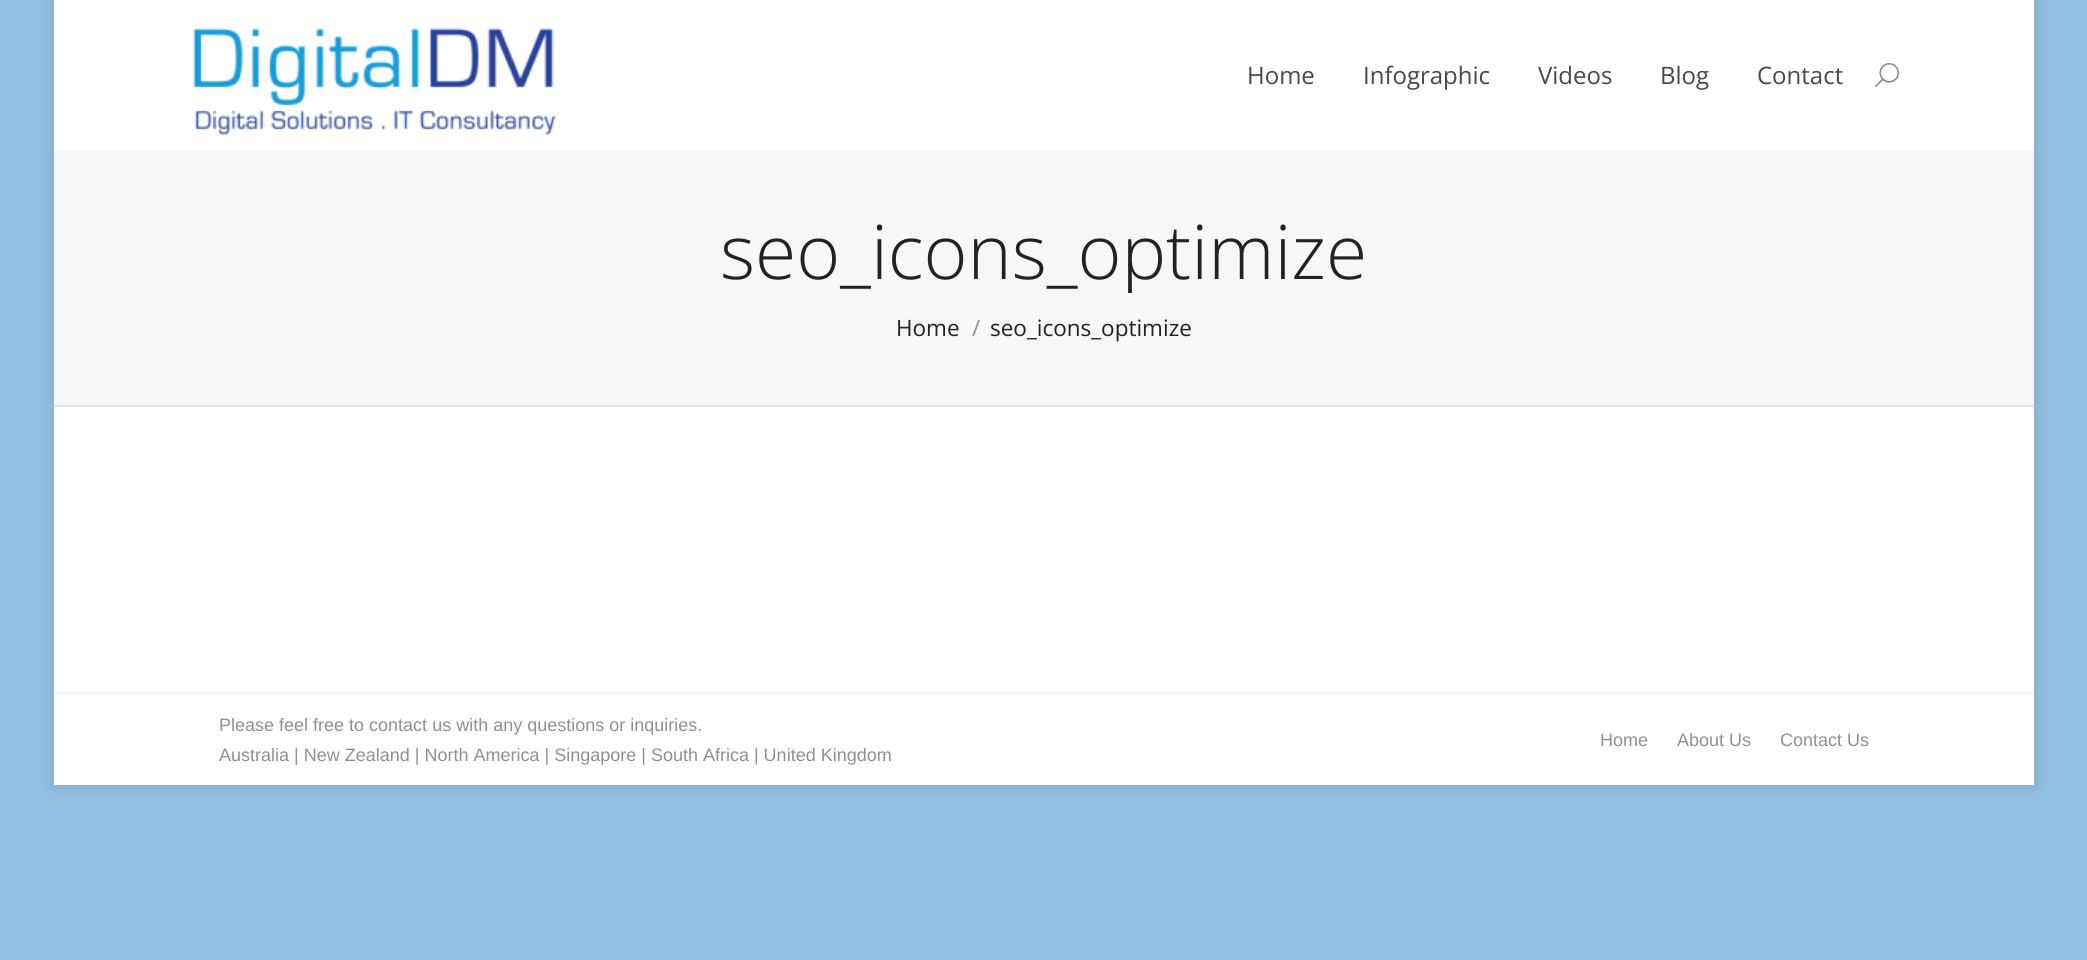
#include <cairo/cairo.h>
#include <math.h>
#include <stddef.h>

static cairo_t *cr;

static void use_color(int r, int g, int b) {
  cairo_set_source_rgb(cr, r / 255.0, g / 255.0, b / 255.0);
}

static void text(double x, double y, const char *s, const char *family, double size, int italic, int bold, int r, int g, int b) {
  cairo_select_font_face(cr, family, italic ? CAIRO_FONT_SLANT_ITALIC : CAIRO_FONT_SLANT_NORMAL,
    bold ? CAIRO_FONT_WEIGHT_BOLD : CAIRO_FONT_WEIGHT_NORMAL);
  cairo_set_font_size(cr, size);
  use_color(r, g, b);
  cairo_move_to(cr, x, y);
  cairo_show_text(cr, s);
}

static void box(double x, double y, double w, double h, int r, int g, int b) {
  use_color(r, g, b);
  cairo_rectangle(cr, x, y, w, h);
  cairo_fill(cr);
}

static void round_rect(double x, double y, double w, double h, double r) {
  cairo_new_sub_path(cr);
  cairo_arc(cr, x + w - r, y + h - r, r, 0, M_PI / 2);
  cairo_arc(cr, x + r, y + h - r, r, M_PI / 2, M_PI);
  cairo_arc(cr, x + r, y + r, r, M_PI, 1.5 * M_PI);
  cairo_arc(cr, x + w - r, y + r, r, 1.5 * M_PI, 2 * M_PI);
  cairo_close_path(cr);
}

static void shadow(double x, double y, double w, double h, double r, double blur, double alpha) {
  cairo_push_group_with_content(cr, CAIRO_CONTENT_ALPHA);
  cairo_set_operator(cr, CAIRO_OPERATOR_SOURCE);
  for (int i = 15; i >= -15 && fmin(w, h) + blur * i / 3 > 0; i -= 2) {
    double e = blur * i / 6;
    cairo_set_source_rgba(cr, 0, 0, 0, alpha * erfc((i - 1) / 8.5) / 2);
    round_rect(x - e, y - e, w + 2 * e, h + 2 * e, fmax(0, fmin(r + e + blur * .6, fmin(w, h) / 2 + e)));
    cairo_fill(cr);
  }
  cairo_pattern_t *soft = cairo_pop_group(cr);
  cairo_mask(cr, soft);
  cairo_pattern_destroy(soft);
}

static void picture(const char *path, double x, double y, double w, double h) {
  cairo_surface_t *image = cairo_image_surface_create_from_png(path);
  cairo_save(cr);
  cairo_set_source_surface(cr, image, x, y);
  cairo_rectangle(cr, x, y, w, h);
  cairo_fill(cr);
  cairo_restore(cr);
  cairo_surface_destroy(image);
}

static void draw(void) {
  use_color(148, 194, 227);
  cairo_paint(cr);
  use_color(0, 0, 0);
  shadow(54, 0, 1980, 785, 0, 9, 0.15);
  box(54, 0, 1980, 785, 255, 255, 255);
  picture("img_01.png", 193, 28, 364, 107);
  picture("img_02.png", 1875, 63, 24, 24);
  box(54, 150, 1980, 255, 247, 247, 247);
  box(54, 405, 1980, 2, 226, 229, 231);
  box(54, 692, 1980, 3, 247, 247, 248);
  text(1247, 84, "Home", "Open Sans", 24, 0, 0, 71, 73, 80);
  text(1363, 84, "Infographic", "Open Sans", 24, 0, 0, 71, 73, 80);
  text(1538, 84, "Videos", "Open Sans", 24, 0, 0, 71, 73, 80);
  text(1660, 84, "Blog", "Open Sans", 24, 0, 0, 71, 73, 80);
  text(1757, 84, "Contact", "Open Sans", 24, 0, 0, 71, 73, 80);
  cairo_save(cr);
  cairo_rectangle(cr, 720, 210, 648, 83);
  cairo_clip(cr);
  text(720, 279, "seo_icons_optimize", "Open Sans Light", 75, 0, 0, 34, 34, 34);
  cairo_restore(cr);
  text(896, 336, "Home", "Open Sans", 22.5, 0, 0, 34, 34, 34);
  text(972, 336, "/", "Open Sans", 22.5, 0, 0, 141, 141, 141);
  text(990, 336, "seo_icons_optimize", "Open Sans", 22.5, 0, 0, 34, 34, 34);
  text(219, 731, "Please feel free to contact us with any questions or inquiries.", "Liberation Sans", 18, 0, 0, 141, 144, 149);
  text(219, 761, "Australia | New Zealand | North America | Singapore | South Africa | United Kingdom", "Liberation Sans", 18, 0, 0, 141, 144, 149);
  text(1600, 746, "Home", "Liberation Sans", 18, 0, 0, 141, 144, 149);
  text(1677, 746, "About Us", "Liberation Sans", 18, 0, 0, 141, 144, 149);
  text(1780, 746, "Contact Us", "Liberation Sans", 18, 0, 0, 141, 144, 149);
}

int main(void) {
  cairo_surface_t *surface = cairo_image_surface_create(CAIRO_FORMAT_RGB24, 2087, 960);
  cr = cairo_create(surface);
  cairo_font_options_t *options = cairo_font_options_create();
  cairo_font_options_set_hint_metrics(options, CAIRO_HINT_METRICS_OFF);
  cairo_font_options_set_hint_style(options, CAIRO_HINT_STYLE_NONE);
  cairo_set_font_options(cr, options);
  cairo_set_miter_limit(cr, 4);
  draw();
  cairo_surface_write_to_png(surface, "out.png");
  cairo_font_options_destroy(options);
  cairo_destroy(cr);
  cairo_surface_destroy(surface);
  return 0;
}
